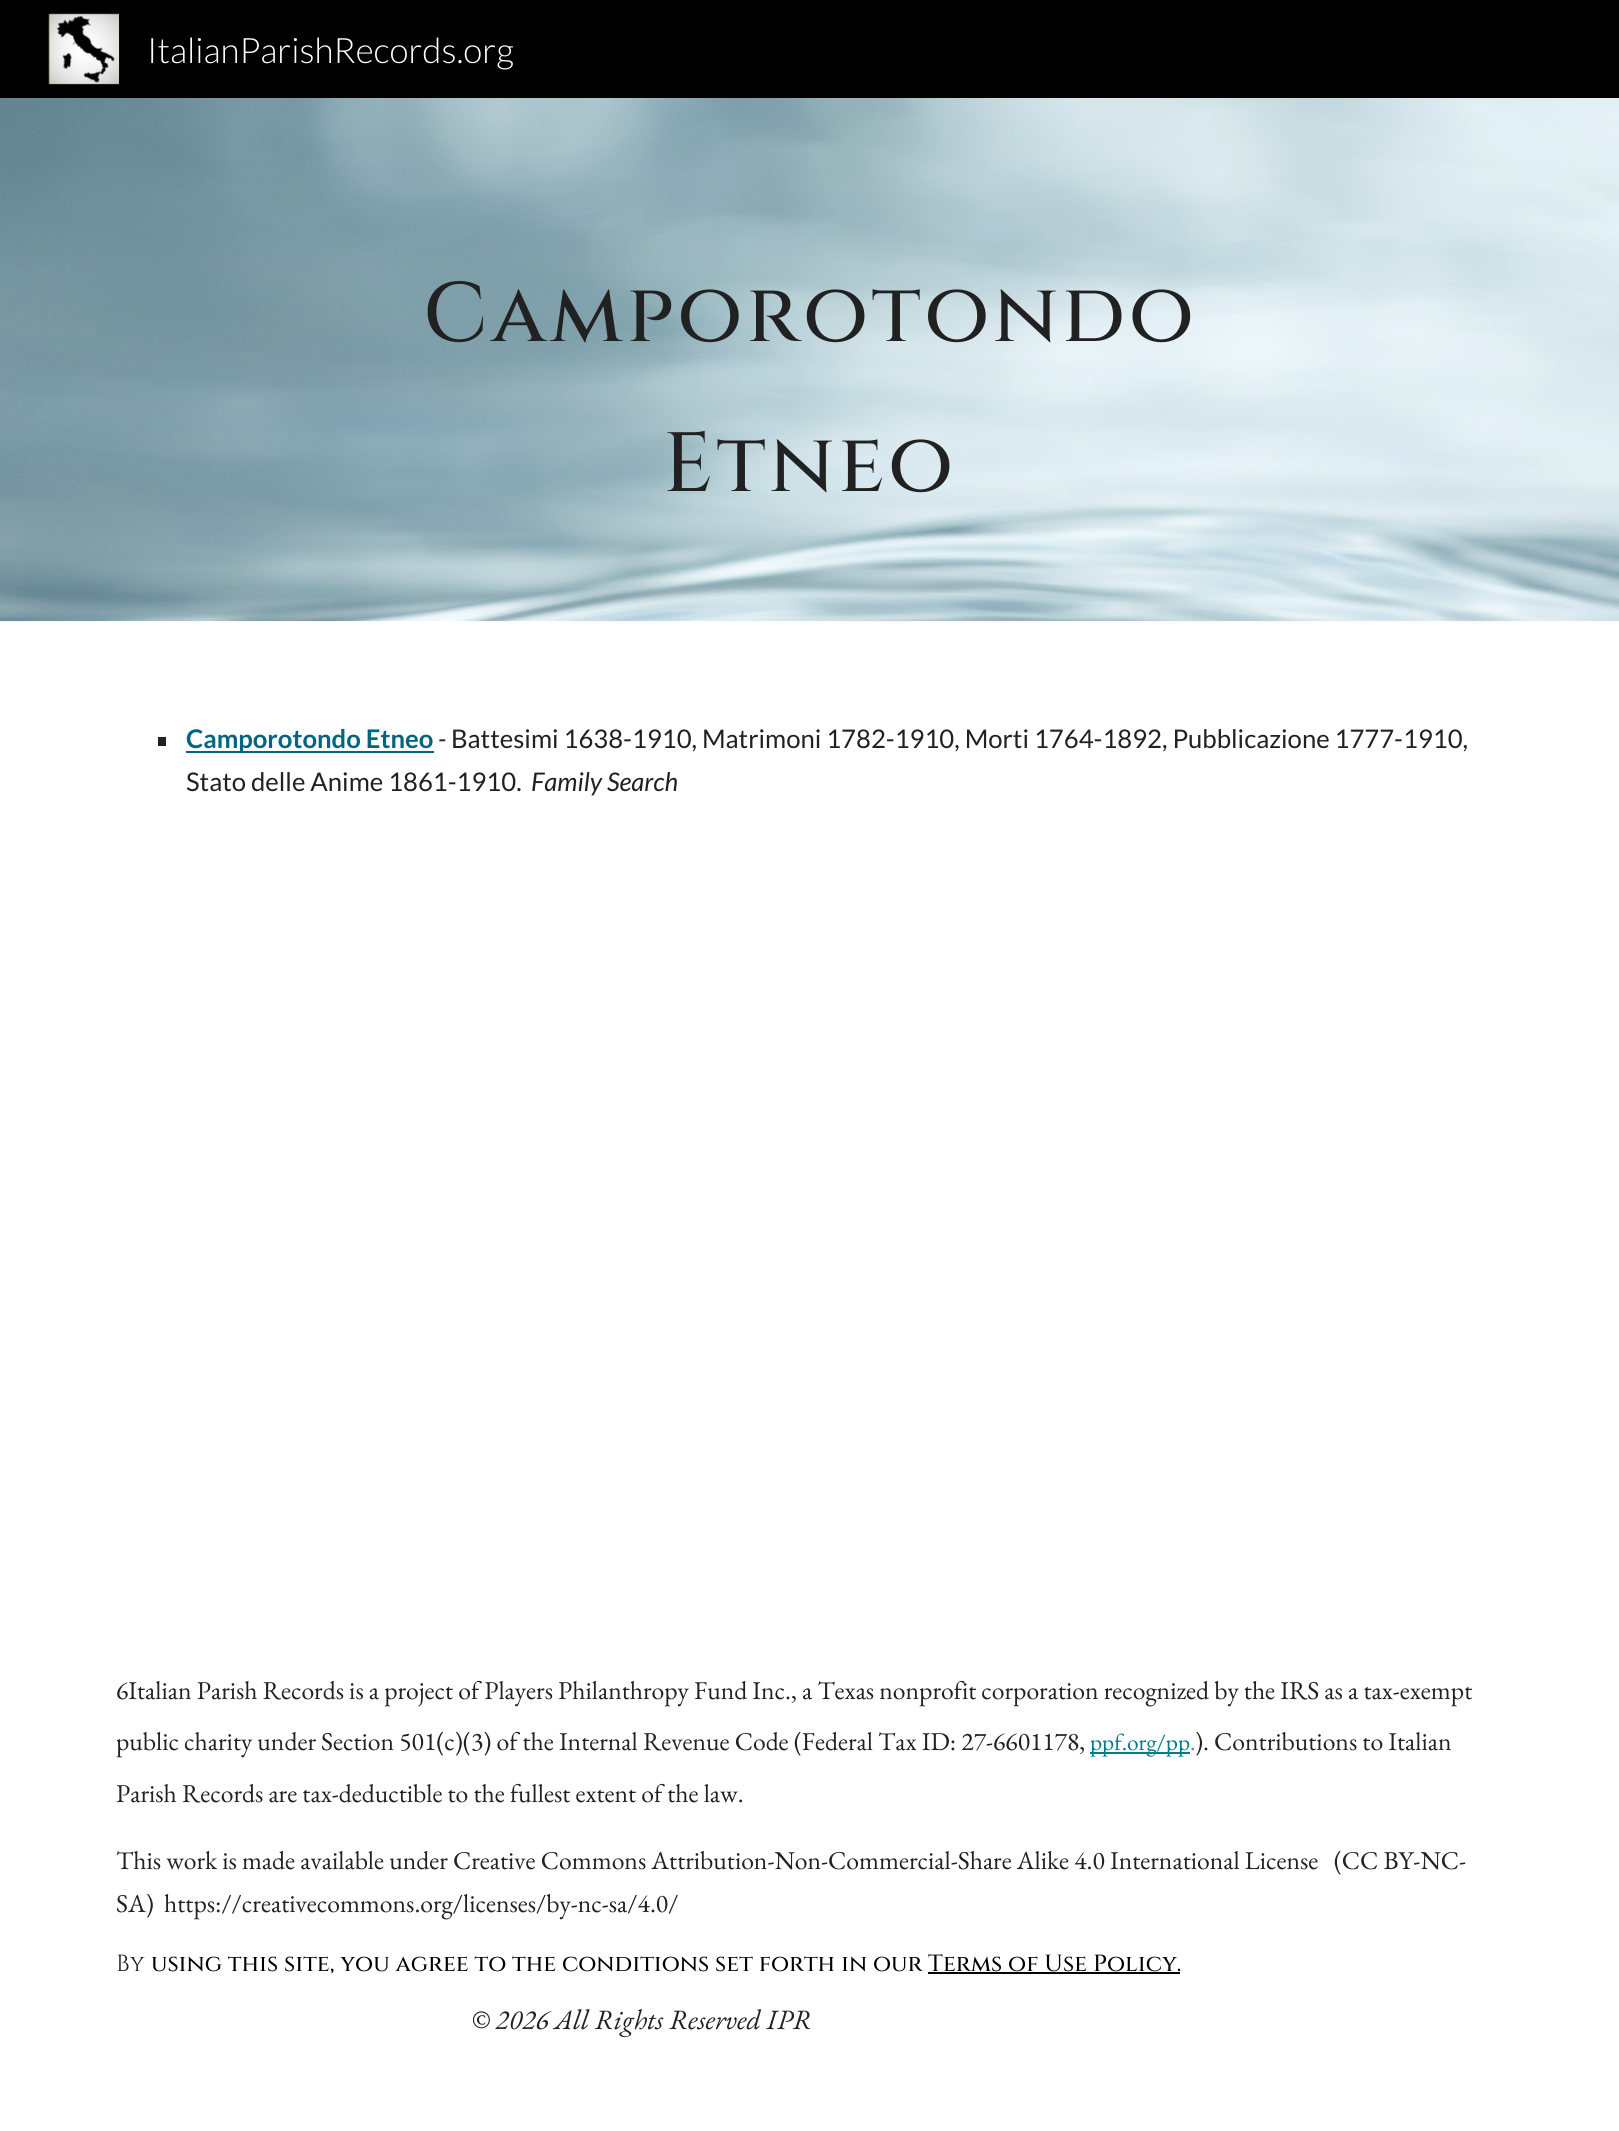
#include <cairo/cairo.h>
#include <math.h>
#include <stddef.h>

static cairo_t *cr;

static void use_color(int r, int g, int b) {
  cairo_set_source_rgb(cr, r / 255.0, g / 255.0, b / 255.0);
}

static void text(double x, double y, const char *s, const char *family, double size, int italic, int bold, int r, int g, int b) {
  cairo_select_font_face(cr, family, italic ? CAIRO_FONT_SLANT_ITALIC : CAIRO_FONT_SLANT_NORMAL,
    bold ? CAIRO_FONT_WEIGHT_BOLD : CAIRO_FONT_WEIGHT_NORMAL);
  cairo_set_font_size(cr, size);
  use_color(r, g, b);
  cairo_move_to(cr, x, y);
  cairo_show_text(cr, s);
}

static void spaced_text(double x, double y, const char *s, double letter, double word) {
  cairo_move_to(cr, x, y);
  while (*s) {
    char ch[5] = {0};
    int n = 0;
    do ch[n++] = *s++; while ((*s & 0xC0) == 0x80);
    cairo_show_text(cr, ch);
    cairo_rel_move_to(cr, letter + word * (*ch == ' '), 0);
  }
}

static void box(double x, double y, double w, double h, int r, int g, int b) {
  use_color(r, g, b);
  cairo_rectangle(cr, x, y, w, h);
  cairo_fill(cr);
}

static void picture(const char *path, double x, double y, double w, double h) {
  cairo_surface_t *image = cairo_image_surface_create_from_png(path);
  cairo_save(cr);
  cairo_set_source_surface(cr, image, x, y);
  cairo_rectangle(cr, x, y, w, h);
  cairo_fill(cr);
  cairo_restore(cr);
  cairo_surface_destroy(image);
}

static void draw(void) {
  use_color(255, 255, 255);
  cairo_paint(cr);
  box(0, 0, 1619, 98, 0, 0, 0);
  picture("img_01.png", 48, 13, 72, 72);
  picture("img_02.png", 0, 98, 1619, 524);
  box(158, 737, 8, 9, 33, 33, 33);
  box(186, 751, 248, 2, 0, 101, 128);
  box(1090, 1752, 100, 2, 0, 124, 137);
  box(928, 1972, 252, 2, 0, 0, 0);
  text(147, 63, "ItalianParishRecords.org", "Lato Light", 35, 0, 0, 255, 255, 255);
  cairo_select_font_face(cr, "Cinzel Medium", CAIRO_FONT_SLANT_NORMAL, CAIRO_FONT_WEIGHT_NORMAL);
  cairo_set_font_size(cr, 84);
  use_color(33, 33, 33);
  spaced_text(423, 341, "Camporotondo", 3.5, 0);
  spaced_text(663, 491, "Etneo", 3.5, 0);
  text(186, 748, "Camporotondo Etneo", "Lato", 25.67, 0, 1, 0, 101, 128);
  text(438, 748, "-", "Lato", 25.67, 1, 0, 33, 33, 33);
  text(451, 748, "Battesimi 1638-1910, Matrimoni 1782-1910, Morti 1764-1892, Pubblicazione 1777-1910,", "Lato", 25.67, 0, 0, 33, 33, 33);
  text(186, 791, "Stato delle Anime 1861-1910.", "Lato", 25.67, 0, 0, 33, 33, 33);
  text(531, 791, "Family Search", "Lato", 25.67, 1, 0, 33, 33, 33);
  text(116, 1699, "6Italian Parish Records is a project of Players Philanthropy Fund Inc., a Texas nonprofit corporation recognized by the IRS as a tax-exempt", "EB Garamond", 25.67, 0, 0, 33, 33, 33);
  text(116, 1750, "public charity under Section 501(c)(3) of the Internal Revenue Code (Federal Tax ID: 27-6601178,", "EB Garamond", 25.67, 0, 0, 33, 33, 33);
  text(1090, 1750, "ppf.org/pp", "EB Garamond", 23.35, 0, 0, 0, 124, 137);
  text(1190, 1750, ".", "EB Garamond", 23.35, 0, 0, 117, 117, 117);
  text(1195, 1750, "). Contributions to Italian", "EB Garamond", 25.67, 0, 0, 33, 33, 33);
  text(116, 1802, "Parish Records are tax-deductible to the fullest extent of the law.", "EB Garamond", 25.67, 0, 0, 33, 33, 33);
  text(116, 1869, "This work is made available under Creative Commons Attribution-Non-Commercial-Share Alike 4.0 International License   (CC BY-NC-", "EB Garamond", 25.67, 0, 0, 33, 33, 33);
  text(116, 1912, "SA)  https://creativecommons.org/licenses/by-nc-sa/4.0/", "EB Garamond", 25.67, 0, 0, 33, 33, 33);
  text(116, 1971, "By", "Cinzel", 23.35, 0, 0, 33, 33, 33);
  text(151, 1971, "using this site, you agree to the conditions set forth in our Terms of Use Policy.", "Cinzel Medium", 23.35, 0, 0, 0, 0, 0);
  text(471, 2029, "© 2026 All Rights Reserved IPR", "EB Garamond", 28, 1, 0, 33, 33, 33);
}

int main(void) {
  cairo_surface_t *surface = cairo_image_surface_create(CAIRO_FORMAT_RGB24, 1619, 2131);
  cr = cairo_create(surface);
  cairo_font_options_t *options = cairo_font_options_create();
  cairo_font_options_set_hint_metrics(options, CAIRO_HINT_METRICS_OFF);
  cairo_font_options_set_hint_style(options, CAIRO_HINT_STYLE_NONE);
  cairo_set_font_options(cr, options);
  cairo_set_miter_limit(cr, 4);
  draw();
  cairo_surface_write_to_png(surface, "out.png");
  cairo_font_options_destroy(options);
  cairo_destroy(cr);
  cairo_surface_destroy(surface);
  return 0;
}
